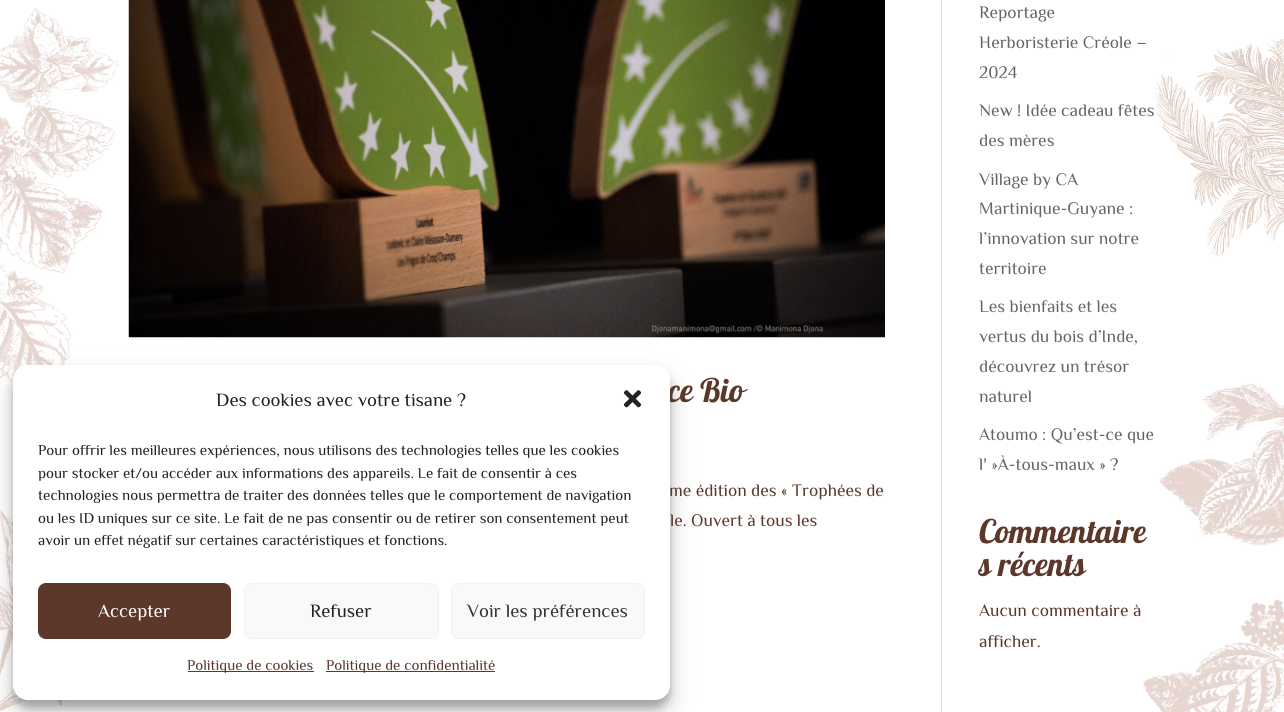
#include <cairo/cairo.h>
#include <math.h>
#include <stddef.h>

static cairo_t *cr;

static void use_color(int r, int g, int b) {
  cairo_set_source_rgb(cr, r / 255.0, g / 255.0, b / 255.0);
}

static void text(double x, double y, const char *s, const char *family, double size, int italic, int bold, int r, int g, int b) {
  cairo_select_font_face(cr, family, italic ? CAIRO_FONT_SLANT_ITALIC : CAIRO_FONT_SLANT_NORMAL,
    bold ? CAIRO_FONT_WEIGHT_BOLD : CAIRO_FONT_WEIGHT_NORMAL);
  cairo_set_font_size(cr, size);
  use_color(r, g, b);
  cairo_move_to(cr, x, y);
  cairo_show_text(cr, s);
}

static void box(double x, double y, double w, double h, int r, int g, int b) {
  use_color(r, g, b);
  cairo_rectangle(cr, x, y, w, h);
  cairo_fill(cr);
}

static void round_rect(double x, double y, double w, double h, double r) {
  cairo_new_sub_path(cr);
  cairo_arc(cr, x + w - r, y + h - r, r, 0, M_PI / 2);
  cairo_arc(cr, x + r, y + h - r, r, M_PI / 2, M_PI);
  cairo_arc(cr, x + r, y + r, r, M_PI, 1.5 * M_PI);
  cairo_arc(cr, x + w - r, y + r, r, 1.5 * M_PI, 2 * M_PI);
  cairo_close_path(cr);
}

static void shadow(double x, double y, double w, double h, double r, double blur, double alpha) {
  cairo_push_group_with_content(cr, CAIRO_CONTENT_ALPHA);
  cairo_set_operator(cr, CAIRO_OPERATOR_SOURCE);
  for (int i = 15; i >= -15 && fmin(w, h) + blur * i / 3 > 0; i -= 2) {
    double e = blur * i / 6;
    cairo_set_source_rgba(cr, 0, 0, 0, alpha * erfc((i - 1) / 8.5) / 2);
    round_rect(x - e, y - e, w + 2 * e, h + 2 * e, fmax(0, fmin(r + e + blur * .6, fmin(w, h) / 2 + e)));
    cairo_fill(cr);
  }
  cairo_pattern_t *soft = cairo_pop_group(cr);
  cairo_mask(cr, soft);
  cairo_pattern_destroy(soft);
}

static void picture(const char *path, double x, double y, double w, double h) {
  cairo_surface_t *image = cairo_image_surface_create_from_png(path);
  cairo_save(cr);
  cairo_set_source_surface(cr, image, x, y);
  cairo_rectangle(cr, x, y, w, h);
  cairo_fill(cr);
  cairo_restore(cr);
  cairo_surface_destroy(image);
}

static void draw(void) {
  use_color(255, 255, 255);
  cairo_paint(cr);
  picture("img_01.png", 0, 8, 1284, 704);
  use_color(0, 0, 0);
  shadow(13, 373, 657, 335, 15, 4, 0.23);
  shadow(13, 378, 657, 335, 15, 12.5, 0.19);
  box(941, 0, 1, 712, 226, 226, 226);
  picture("img_03.png", 128, 0, 757, 338);
  text(668, 402, "ce Bio", "Pattaya", 32.5, 0, 0, 92, 56, 43);
  text(669, 496, "me édition des « Trophées de", "Philosopher", 17.5, 0, 0, 92, 56, 43);
  use_color(255, 255, 255);
  round_rect(13, 365, 657, 335, 15);
  cairo_fill(cr);
  text(38, 545, "avoir un effet négatif sur certaines caractéristiques et fonctions.", "Philosopher", 15, 0, 0, 34, 34, 34);
  text(38, 523, "ou les ID uniques sur ce site. Le fait de ne pas consentir ou de retirer son consentement peut", "Philosopher", 15, 0, 0, 34, 34, 34);
  text(38, 500, "technologies nous permettra de traiter des données telles que le comportement de navigation", "Philosopher", 15, 0, 0, 34, 34, 34);
  text(38, 478, "pour stocker et/ou accéder aux informations des appareils. Le fait de consentir à ces", "Philosopher", 15, 0, 0, 34, 34, 34);
  text(38, 455, "Pour offrir les meilleures expériences, nous utilisons des technologies telles que les cookies", "Philosopher", 15, 0, 0, 34, 34, 34);
  picture("img_02.png", 623, 390, 19, 18);
  box(326, 671, 169, 1, 92, 56, 43);
  text(326, 670, "Politique de confidentialité", "Philosopher", 15, 0, 0, 92, 56, 43);
  box(188, 671, 126, 1, 92, 56, 43);
  text(187, 670, "Politique de cookies", "Philosopher", 15, 0, 0, 92, 56, 43);
  use_color(249, 249, 249);
  round_rect(451.5, 583.5, 193, 55, 7.5);
  cairo_fill_preserve(cr);
  use_color(242, 242, 242);
  cairo_set_line_width(cr, 1);
  cairo_stroke(cr);
  text(467, 617, "Voir les préférences", "Philosopher", 18.75, 0, 0, 51, 51, 51);
  use_color(249, 249, 249);
  round_rect(244.5, 583.5, 194, 55, 7.5);
  cairo_fill_preserve(cr);
  use_color(242, 242, 242);
  cairo_stroke(cr);
  text(310, 617, "Refuser", "Philosopher", 18.75, 0, 0, 34, 34, 34);
  use_color(92, 56, 43);
  round_rect(38.5, 583.5, 192, 55, 7.5);
  cairo_fill_preserve(cr);
  cairo_stroke(cr);
  text(98, 617, "Accepter", "Philosopher", 18.75, 0, 0, 255, 255, 255);
  text(216, 406, "Des cookies avec votre tisane ?", "Philosopher", 18.75, 0, 0, 34, 34, 34);
  text(670, 526, "le. Ouvert à tous les", "Philosopher", 17.5, 0, 0, 92, 56, 43);
  text(979, 18, "Reportage", "Philosopher", 17.5, 0, 0, 102, 102, 102);
  text(979, 48, "Herboristerie Créole –", "Philosopher", 17.5, 0, 0, 102, 102, 102);
  text(979, 78, "2024", "Philosopher", 17.5, 0, 0, 102, 102, 102);
  text(979, 116, "New ! Idée cadeau fêtes", "Philosopher", 17.5, 0, 0, 102, 102, 102);
  text(979, 146, "des mères", "Philosopher", 17.5, 0, 0, 102, 102, 102);
  text(979, 185, "Village by CA", "Philosopher", 17.5, 0, 0, 102, 102, 102);
  text(979, 214, "Martinique-Guyane :", "Philosopher", 17.5, 0, 0, 102, 102, 102);
  text(979, 244, "l’innovation sur notre", "Philosopher", 17.5, 0, 0, 102, 102, 102);
  text(979, 274, "territoire", "Philosopher", 17.5, 0, 0, 102, 102, 102);
  text(979, 312, "Les bienfaits et les", "Philosopher", 17.5, 0, 0, 102, 102, 102);
  text(979, 342, "vertus du bois d’Inde,", "Philosopher", 17.5, 0, 0, 102, 102, 102);
  text(979, 372, "découvrez un trésor", "Philosopher", 17.5, 0, 0, 102, 102, 102);
  text(979, 402, "naturel", "Philosopher", 17.5, 0, 0, 102, 102, 102);
  text(979, 440, "Atoumo : Qu’est-ce que", "Philosopher", 17.5, 0, 0, 102, 102, 102);
  text(979, 470, "l' »À-tous-maux » ?", "Philosopher", 17.5, 0, 0, 102, 102, 102);
  text(979, 543, "Commentaire", "Pattaya", 32.5, 0, 0, 92, 56, 43);
  text(979, 576, "s récents", "Pattaya", 32.5, 0, 0, 92, 56, 43);
  text(979, 616, "Aucun commentaire à", "Philosopher", 17.5, 0, 0, 92, 56, 43);
  text(979, 647, "afficher.", "Philosopher", 17.5, 0, 0, 92, 56, 43);
}

int main(void) {
  cairo_surface_t *surface = cairo_image_surface_create(CAIRO_FORMAT_RGB24, 1284, 712);
  cr = cairo_create(surface);
  cairo_font_options_t *options = cairo_font_options_create();
  cairo_font_options_set_hint_metrics(options, CAIRO_HINT_METRICS_OFF);
  cairo_font_options_set_hint_style(options, CAIRO_HINT_STYLE_NONE);
  cairo_set_font_options(cr, options);
  cairo_set_miter_limit(cr, 4);
  draw();
  cairo_surface_write_to_png(surface, "out.png");
  cairo_font_options_destroy(options);
  cairo_destroy(cr);
  cairo_surface_destroy(surface);
  return 0;
}
